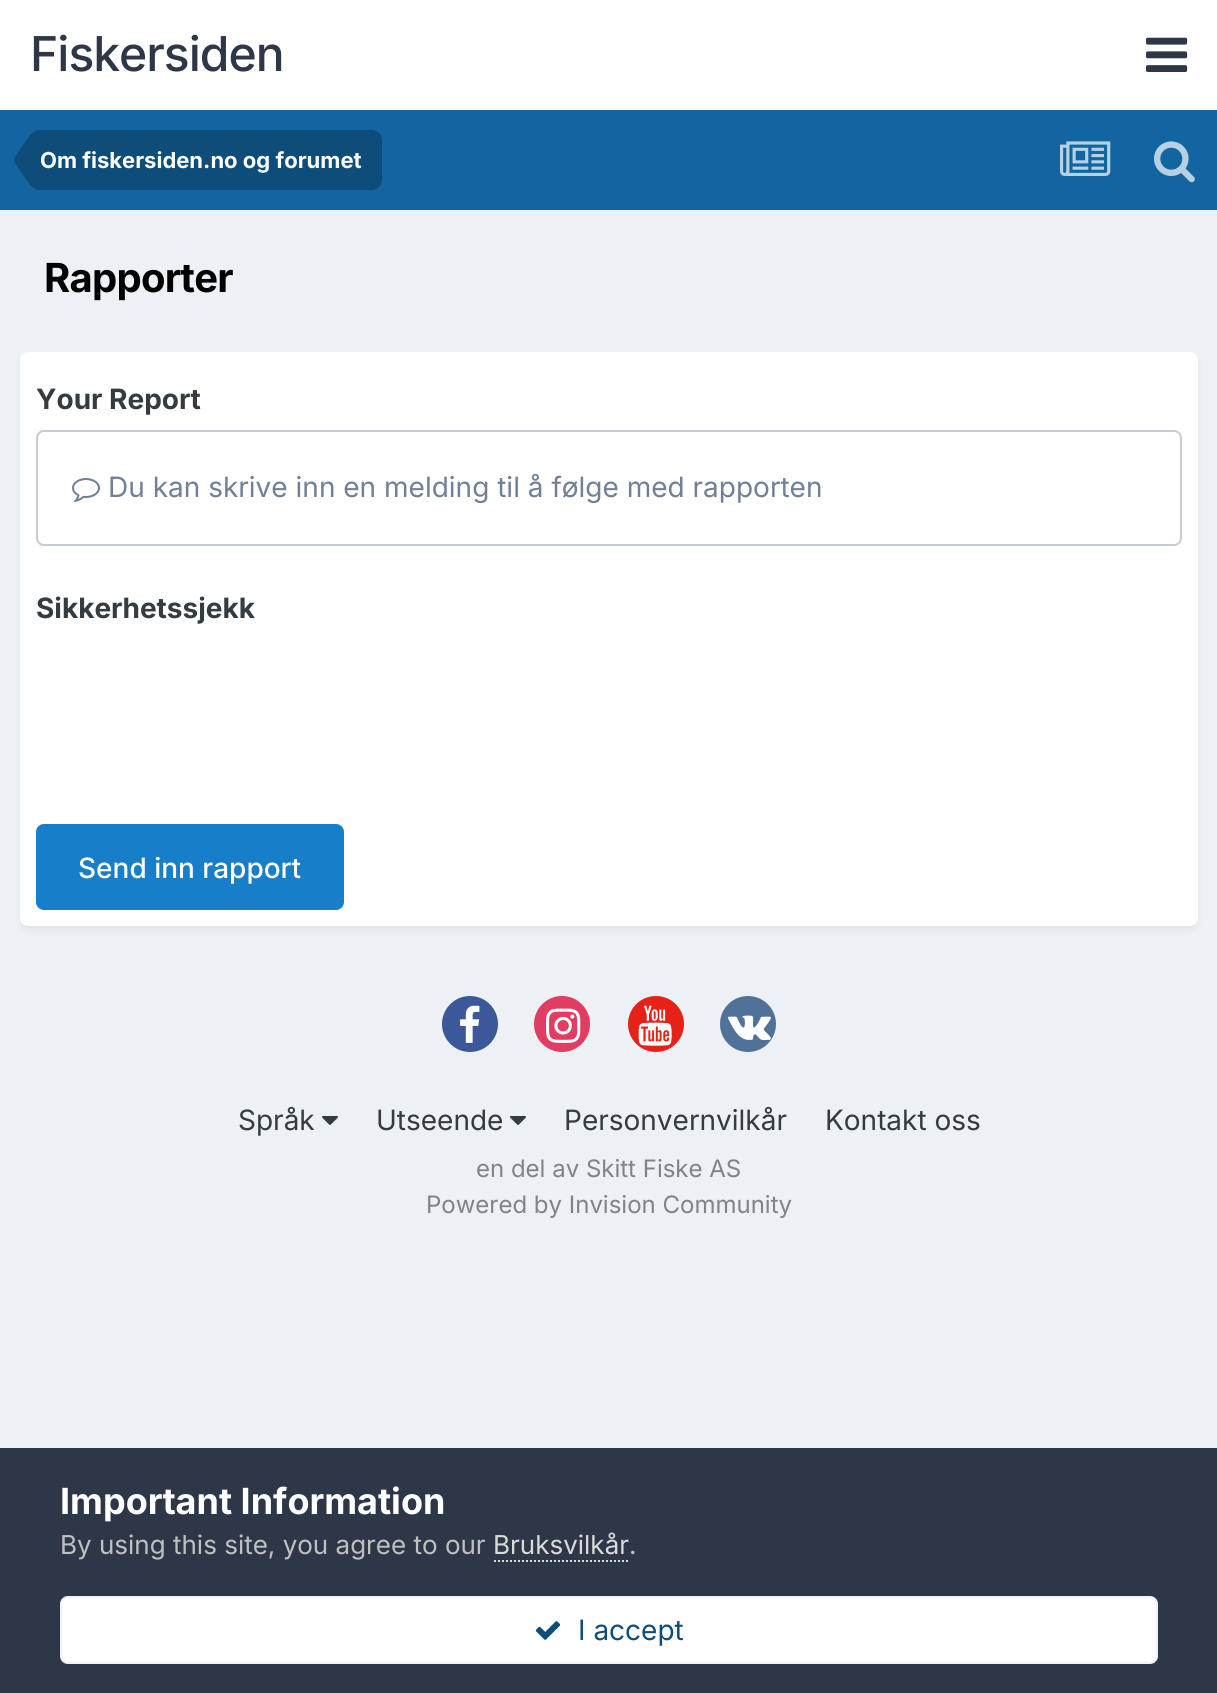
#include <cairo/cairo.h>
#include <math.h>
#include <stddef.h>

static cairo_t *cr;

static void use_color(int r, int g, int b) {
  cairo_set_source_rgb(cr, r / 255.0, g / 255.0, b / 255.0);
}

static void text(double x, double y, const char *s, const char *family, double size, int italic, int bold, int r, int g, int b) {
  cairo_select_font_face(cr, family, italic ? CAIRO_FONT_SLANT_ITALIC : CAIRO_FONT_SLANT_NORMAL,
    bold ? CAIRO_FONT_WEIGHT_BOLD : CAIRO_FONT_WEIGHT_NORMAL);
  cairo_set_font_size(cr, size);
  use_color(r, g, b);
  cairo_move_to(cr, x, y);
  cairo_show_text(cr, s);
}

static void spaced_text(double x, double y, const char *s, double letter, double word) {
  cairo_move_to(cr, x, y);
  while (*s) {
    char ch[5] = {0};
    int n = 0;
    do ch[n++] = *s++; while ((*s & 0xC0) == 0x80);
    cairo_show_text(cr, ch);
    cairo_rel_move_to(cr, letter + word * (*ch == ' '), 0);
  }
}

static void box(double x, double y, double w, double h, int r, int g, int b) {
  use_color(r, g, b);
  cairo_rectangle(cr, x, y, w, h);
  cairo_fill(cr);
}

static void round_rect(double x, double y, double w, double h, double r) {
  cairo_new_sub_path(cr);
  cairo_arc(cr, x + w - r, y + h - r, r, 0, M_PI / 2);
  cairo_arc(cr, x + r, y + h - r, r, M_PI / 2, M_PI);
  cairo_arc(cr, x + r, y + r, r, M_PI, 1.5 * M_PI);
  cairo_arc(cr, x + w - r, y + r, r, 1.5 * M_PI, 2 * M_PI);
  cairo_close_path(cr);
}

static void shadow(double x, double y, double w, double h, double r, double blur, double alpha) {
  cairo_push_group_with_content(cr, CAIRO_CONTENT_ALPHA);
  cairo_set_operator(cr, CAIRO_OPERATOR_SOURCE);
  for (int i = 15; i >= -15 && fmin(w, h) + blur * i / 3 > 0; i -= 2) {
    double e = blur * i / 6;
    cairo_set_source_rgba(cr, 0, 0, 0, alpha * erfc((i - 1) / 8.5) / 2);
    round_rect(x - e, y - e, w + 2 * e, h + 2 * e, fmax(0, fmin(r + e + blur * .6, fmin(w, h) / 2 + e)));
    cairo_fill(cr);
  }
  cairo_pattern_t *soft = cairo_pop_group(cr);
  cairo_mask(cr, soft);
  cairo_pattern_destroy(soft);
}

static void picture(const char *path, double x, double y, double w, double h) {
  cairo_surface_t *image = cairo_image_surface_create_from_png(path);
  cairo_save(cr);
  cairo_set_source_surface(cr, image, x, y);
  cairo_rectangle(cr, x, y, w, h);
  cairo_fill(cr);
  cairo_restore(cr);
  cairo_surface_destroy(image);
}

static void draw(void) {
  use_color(237, 240, 244);
  cairo_paint(cr);
  box(0, 0, 1217, 110, 255, 255, 255);
  picture("img_01.png", 1146, 37, 42, 35);
  box(0, 110, 1217, 100, 18, 101, 161);
  use_color(14, 76, 121);
  cairo_new_path(cr);
  cairo_move_to(cr, 40, 130);
  cairo_line_to(cr, 372, 130);
  cairo_curve_to(cr, 377.5, 130, 382, 134.5, 382, 140);
  cairo_line_to(cr, 382, 180);
  cairo_curve_to(cr, 382, 185.5, 377.5, 190, 372, 190);
  cairo_line_to(cr, 40, 190);
  cairo_close_path(cr);
  cairo_fill(cr);
  cairo_new_path(cr);
  cairo_move_to(cr, 40, 160);
  cairo_line_to(cr, 40, 190);
  cairo_curve_to(cr, 36.5, 190, 33, 188, 30, 185);
  cairo_line_to(cr, 15, 163.5);
  cairo_curve_to(cr, 14.5, 162.5, 14, 161.5, 14, 160);
  cairo_close_path(cr);
  cairo_move_to(cr, 40, 160);
  cairo_line_to(cr, 14, 160);
  cairo_curve_to(cr, 14, 158.5, 14.5, 157.5, 15, 156.5);
  cairo_line_to(cr, 30, 135);
  cairo_curve_to(cr, 33, 132, 36.5, 130, 40, 130);
  cairo_close_path(cr);
  cairo_fill(cr);
  picture("img_02.png", 1060, 141, 51, 35);
  picture("img_03.png", 1154, 141, 41, 42);
  use_color(45, 55, 72);
  shadow(22, 358, 1174, 570, 6, 4, 0.1);
  use_color(255, 255, 255);
  round_rect(20, 352, 1178, 574, 8);
  cairo_fill(cr);
  round_rect(37, 431, 1144, 114, 7);
  use_color(198, 204, 213);
  cairo_stroke(cr);
  picture("img_04.png", 72, 478, 28, 24);
  use_color(23, 126, 201);
  round_rect(36, 824, 308, 86, 8);
  cairo_fill(cr);
  use_color(59, 89, 152);
  cairo_arc(cr, 470, 1024, 28, 0, 2 * M_PI);
  cairo_fill(cr);
  picture("img_05.png", 460, 1005, 20, 38);
  use_color(225, 61, 98);
  cairo_arc(cr, 562, 1024, 28, 0, 2 * M_PI);
  cairo_fill(cr);
  picture("img_06.png", 546, 1008, 35, 35);
  use_color(230, 33, 23);
  cairo_arc(cr, 656, 1024, 28, 0, 2 * M_PI);
  cairo_fill(cr);
  picture("img_07.png", 638, 1005, 34, 41);
  use_color(80, 114, 153);
  cairo_arc(cr, 748, 1024, 28, 0, 2 * M_PI);
  cairo_fill(cr);
  picture("img_08.png", 728, 1015, 43, 25);
  picture("img_09.png", 322, 1116, 16, 9);
  picture("img_09.png", 510, 1116, 16, 9);
  box(0, 1448, 1217, 245, 45, 55, 72);
  cairo_new_path(cr);
  cairo_move_to(cr, 494, 1561);
  cairo_line_to(cr, 630, 1561);
  use_color(218, 218, 218);
  cairo_set_dash(cr, (double[]){2, 2}, 2, 0);
  cairo_stroke(cr);
  use_color(255, 255, 255);
  round_rect(60, 1596, 1098, 68, 8);
  cairo_fill(cr);
  round_rect(61, 1597, 1096, 66, 7);
  cairo_set_source_rgba(cr, 0.055, 0.298, 0.475, 0.07);
  cairo_set_dash(cr, NULL, 0, 0);
  cairo_stroke(cr);
  picture("img_10.png", 535, 1621, 26, 19);
  cairo_select_font_face(cr, "Inter Medium", CAIRO_FONT_SLANT_NORMAL, CAIRO_FONT_WEIGHT_NORMAL);
  cairo_set_font_size(cr, 48);
  use_color(45, 55, 72);
  spaced_text(30, 71, "Fiskersiden", -1, 0);
  text(40, 168, "Om fiskersiden.no og forumet", "Inter", 22, 0, 1, 255, 255, 255);
  cairo_set_font_size(cr, 40);
  use_color(0, 0, 0);
  spaced_text(44, 292, "Rapporter", -0.75, 0);
  text(36, 409, "Your Report", "Inter", 28, 0, 1, 53, 60, 65);
  text(108, 497, "Du kan skrive inn en melding til å følge med rapporten", "Inter", 28, 0, 0, 113, 128, 150);
  text(36, 618, "Sikkerhetssjekk", "Inter", 28, 0, 1, 53, 60, 65);
  text(78, 878, "Send inn rapport", "Inter Medium", 28, 0, 0, 255, 255, 255);
  text(238, 1130, "Språk", "Inter", 28, 0, 0, 53, 60, 65);
  text(376, 1130, "Utseende", "Inter", 28, 0, 0, 53, 60, 65);
  text(564, 1130, "Personvernvilkår", "Inter", 28, 0, 0, 53, 60, 65);
  text(825, 1130, "Kontakt oss", "Inter", 28, 0, 0, 53, 60, 65);
  text(476, 1177, "en del av Skitt Fiske AS", "Inter", 24, 0, 0, 127, 132, 137);
  text(426, 1213, "Powered by Invision Community", "Inter", 24, 0, 0, 127, 132, 137);
  text(60, 1514, "Important Information", "Inter", 36, 0, 1, 255, 255, 255);
  text(60, 1554, "By using this site, you agree to our", "Inter", 26, 0, 0, 192, 192, 192);
  text(493, 1554, "Bruksvilkår", "Inter", 26, 0, 0, 218, 218, 218);
  text(629, 1554, ".", "Inter", 26, 0, 0, 192, 192, 192);
  text(578, 1640, "I accept", "Inter", 28, 0, 0, 14, 76, 121);
}

int main(void) {
  cairo_surface_t *surface = cairo_image_surface_create(CAIRO_FORMAT_RGB24, 1217, 1693);
  cr = cairo_create(surface);
  cairo_font_options_t *options = cairo_font_options_create();
  cairo_font_options_set_hint_metrics(options, CAIRO_HINT_METRICS_OFF);
  cairo_font_options_set_hint_style(options, CAIRO_HINT_STYLE_NONE);
  cairo_set_font_options(cr, options);
  cairo_set_miter_limit(cr, 4);
  draw();
  cairo_surface_write_to_png(surface, "out.png");
  cairo_font_options_destroy(options);
  cairo_destroy(cr);
  cairo_surface_destroy(surface);
  return 0;
}
